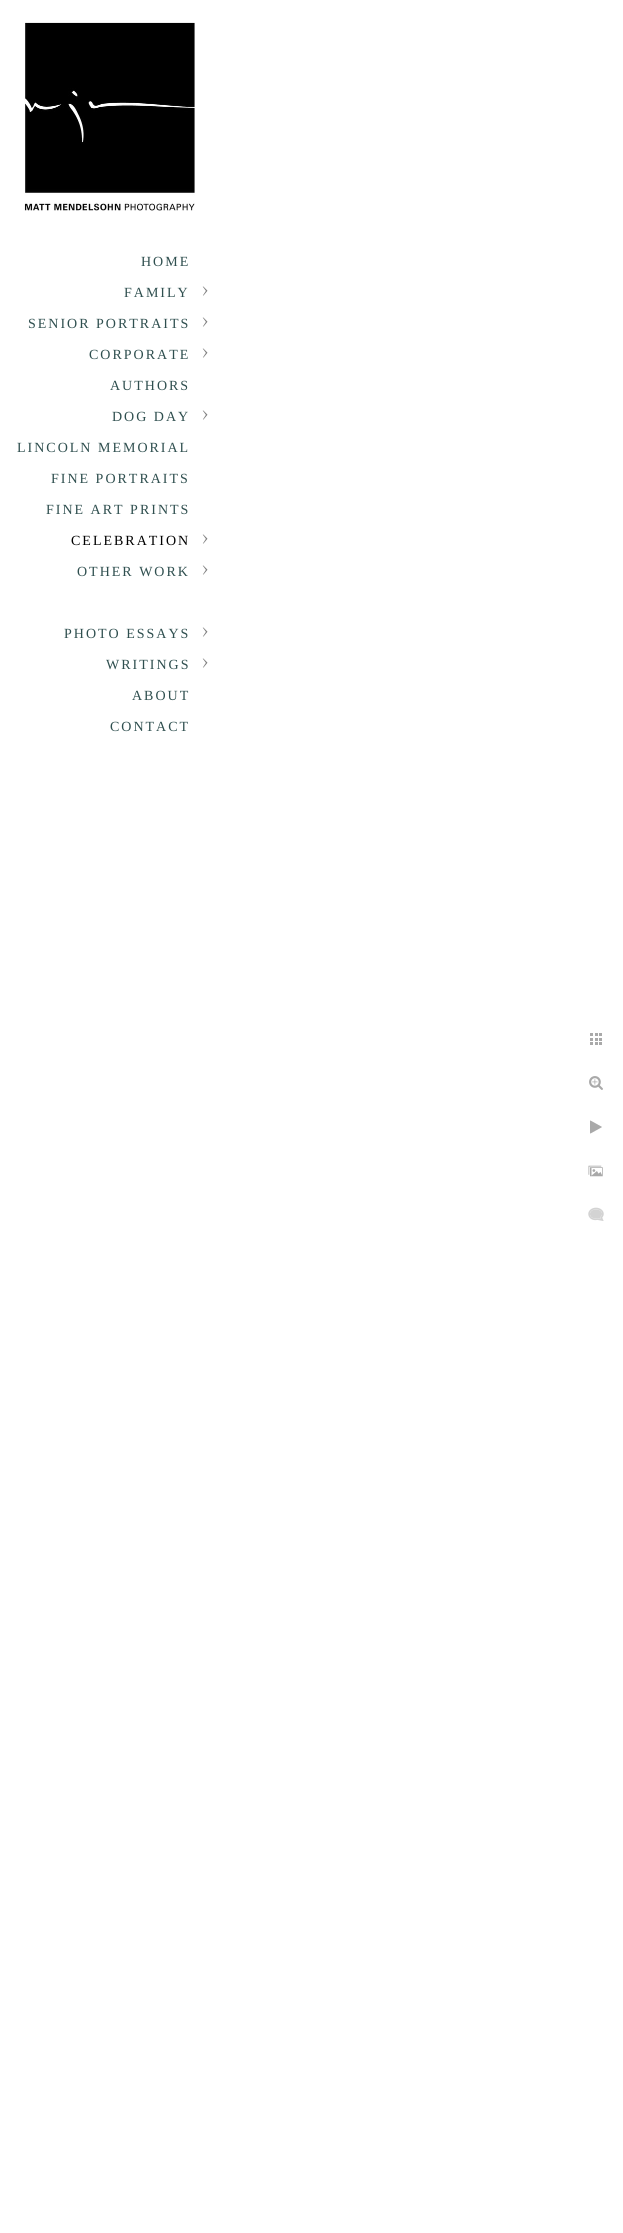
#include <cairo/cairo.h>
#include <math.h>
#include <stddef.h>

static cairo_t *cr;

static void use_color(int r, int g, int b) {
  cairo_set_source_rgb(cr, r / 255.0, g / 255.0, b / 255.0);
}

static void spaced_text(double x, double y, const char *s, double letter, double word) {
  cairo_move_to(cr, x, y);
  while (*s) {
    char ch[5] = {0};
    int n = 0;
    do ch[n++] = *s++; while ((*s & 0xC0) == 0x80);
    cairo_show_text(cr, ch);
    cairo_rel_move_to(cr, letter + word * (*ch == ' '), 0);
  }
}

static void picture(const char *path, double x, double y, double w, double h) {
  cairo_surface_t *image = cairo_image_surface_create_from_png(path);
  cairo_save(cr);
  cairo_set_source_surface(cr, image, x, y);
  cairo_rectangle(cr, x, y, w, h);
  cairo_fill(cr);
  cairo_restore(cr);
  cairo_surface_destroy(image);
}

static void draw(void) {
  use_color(255, 255, 255);
  cairo_paint(cr);
  picture("img_01.png", 24, 22, 171, 189);
  picture("img_02.png", 202, 286, 6, 10);
  picture("img_02.png", 202, 317, 6, 10);
  picture("img_02.png", 202, 348, 6, 10);
  picture("img_02.png", 202, 410, 6, 10);
  picture("img_02.png", 202, 534, 6, 10);
  picture("img_02.png", 202, 565, 6, 10);
  picture("img_02.png", 202, 627, 6, 10);
  picture("img_02.png", 202, 658, 6, 10);
  picture("img_03.png", 590, 1033, 12, 12);
  picture("img_04.png", 589, 1076, 14, 14);
  picture("img_05.png", 590, 1120, 12, 14);
  picture("img_06.png", 588, 1165, 15, 12);
  picture("img_07.png", 588, 1207, 16, 14);
  cairo_select_font_face(cr, "Liberation Serif", CAIRO_FONT_SLANT_NORMAL, CAIRO_FONT_WEIGHT_NORMAL);
  cairo_set_font_size(cr, 14);
  use_color(47, 79, 79);
  spaced_text(141, 266, "HOME", 2, 0);
  spaced_text(124, 297, "FAMILY", 2, 0);
  spaced_text(28, 328, "SENIOR PORTRAITS", 2, 0);
  spaced_text(89, 359, "CORPORATE", 2, 0);
  spaced_text(110, 390, "AUTHORS", 2, 0);
  spaced_text(112, 421, "DOG DAY", 2, 0);
  spaced_text(17, 452, "LINCOLN MEMORIAL", 2, 0);
  spaced_text(51, 483, "FINE PORTRAITS", 2, 0);
  spaced_text(46, 514, "FINE ART PRINTS", 2, 0);
  use_color(0, 0, 0);
  spaced_text(71, 545, "CELEBRATION", 2, 0);
  use_color(47, 79, 79);
  spaced_text(77, 576, "OTHER WORK", 2, 0);
  spaced_text(64, 638, "PHOTO ESSAYS", 2, 0);
  spaced_text(106, 669, "WRITINGS", 2, 0);
  spaced_text(132, 700, "ABOUT", 2, 0);
  spaced_text(110, 731, "CONTACT", 2, 0);
}

int main(void) {
  cairo_surface_t *surface = cairo_image_surface_create(CAIRO_FORMAT_RGB24, 623, 2233);
  cr = cairo_create(surface);
  cairo_font_options_t *options = cairo_font_options_create();
  cairo_font_options_set_hint_metrics(options, CAIRO_HINT_METRICS_OFF);
  cairo_font_options_set_hint_style(options, CAIRO_HINT_STYLE_NONE);
  cairo_set_font_options(cr, options);
  cairo_set_miter_limit(cr, 4);
  draw();
  cairo_surface_write_to_png(surface, "out.png");
  cairo_font_options_destroy(options);
  cairo_destroy(cr);
  cairo_surface_destroy(surface);
  return 0;
}
